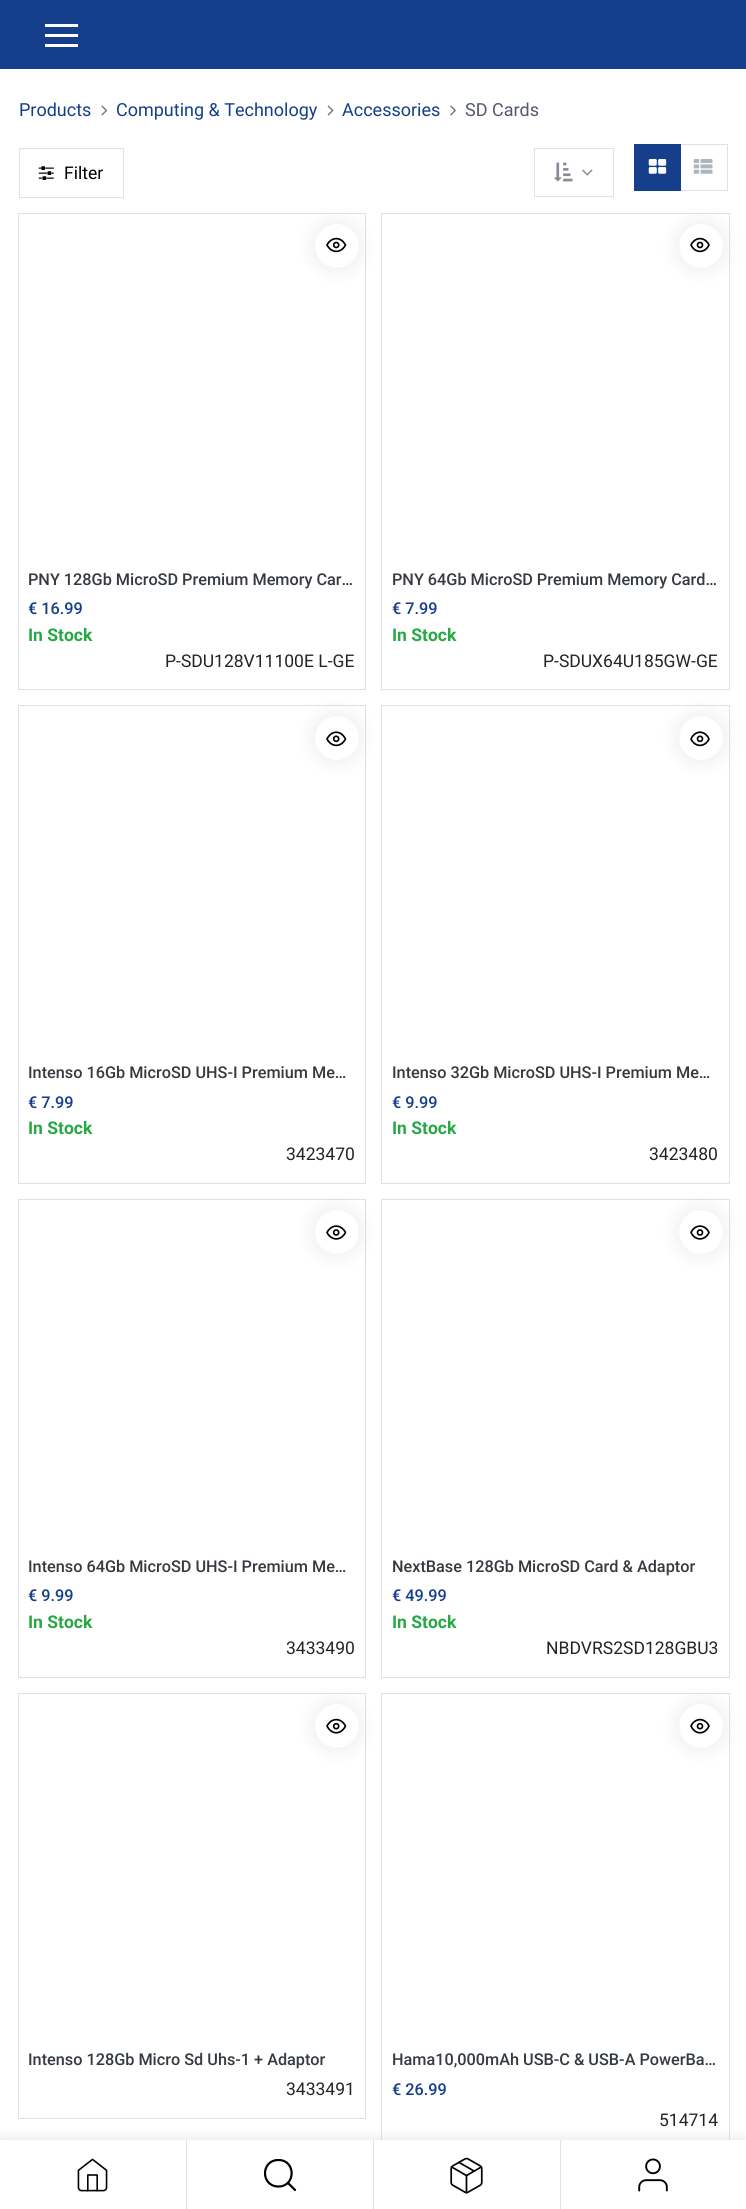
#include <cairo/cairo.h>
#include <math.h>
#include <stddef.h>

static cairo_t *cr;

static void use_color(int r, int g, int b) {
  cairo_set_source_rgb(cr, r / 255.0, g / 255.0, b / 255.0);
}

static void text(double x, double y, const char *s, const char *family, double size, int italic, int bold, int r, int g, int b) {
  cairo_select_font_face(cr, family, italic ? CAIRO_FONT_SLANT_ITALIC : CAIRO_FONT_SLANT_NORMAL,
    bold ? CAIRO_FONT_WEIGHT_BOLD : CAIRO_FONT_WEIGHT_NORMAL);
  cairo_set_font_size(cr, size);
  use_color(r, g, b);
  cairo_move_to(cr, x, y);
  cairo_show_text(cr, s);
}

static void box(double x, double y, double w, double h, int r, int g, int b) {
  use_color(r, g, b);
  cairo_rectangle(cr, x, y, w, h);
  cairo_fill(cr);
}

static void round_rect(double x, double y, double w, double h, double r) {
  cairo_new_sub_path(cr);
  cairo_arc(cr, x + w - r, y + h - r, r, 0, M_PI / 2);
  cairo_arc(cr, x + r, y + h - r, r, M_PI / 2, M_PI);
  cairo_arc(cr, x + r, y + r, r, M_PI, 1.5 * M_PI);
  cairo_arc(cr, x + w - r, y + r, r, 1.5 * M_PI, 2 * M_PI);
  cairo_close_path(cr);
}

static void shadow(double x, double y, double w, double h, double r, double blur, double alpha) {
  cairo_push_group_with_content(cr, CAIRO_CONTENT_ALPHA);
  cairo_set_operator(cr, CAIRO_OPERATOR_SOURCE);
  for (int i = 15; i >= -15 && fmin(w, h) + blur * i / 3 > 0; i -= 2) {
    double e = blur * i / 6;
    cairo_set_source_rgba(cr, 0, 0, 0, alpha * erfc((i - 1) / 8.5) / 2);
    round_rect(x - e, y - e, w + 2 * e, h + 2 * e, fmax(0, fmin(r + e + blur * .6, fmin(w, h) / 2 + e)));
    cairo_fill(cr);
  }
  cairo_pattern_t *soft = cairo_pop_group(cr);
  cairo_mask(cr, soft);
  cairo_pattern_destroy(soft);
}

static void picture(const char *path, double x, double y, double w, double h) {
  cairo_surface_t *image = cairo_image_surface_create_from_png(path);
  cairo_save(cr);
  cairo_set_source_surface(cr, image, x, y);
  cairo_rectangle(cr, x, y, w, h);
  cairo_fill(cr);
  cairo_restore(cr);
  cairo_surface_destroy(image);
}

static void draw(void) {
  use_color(255, 255, 255);
  cairo_paint(cr);
  box(0, 0, 746, 69, 21, 63, 139);
  box(45, 44, 33, 3, 255, 255, 255);
  box(45, 24, 33, 3, 255, 255, 255);
  box(45, 34, 33, 3, 255, 255, 255);
  picture("img_01.png", 101, 105, 7, 11);
  picture("img_02.png", 327, 105, 7, 11);
  picture("img_03.png", 450, 105, 6, 11);
  cairo_rectangle(cr, 19.5, 148.5, 104, 49);
  use_color(222, 226, 230);
  cairo_set_line_width(cr, 1);
  cairo_stroke(cr);
  picture("img_04.png", 38, 166, 16, 14);
  box(534, 148, 80, 1, 222, 226, 230);
  box(613, 148, 1, 50, 222, 226, 230);
  box(534, 196, 80, 1, 222, 226, 230);
  box(534, 149, 1, 47, 222, 226, 230);
  picture("img_05.png", 554, 162, 19, 20);
  picture("img_06.png", 582, 169, 11, 7);
  cairo_rectangle(cr, 680.5, 144.5, 47, 46);
  cairo_stroke(cr);
  box(634, 144, 47, 47, 21, 63, 139);
  picture("img_07.png", 648, 159, 19, 15);
  picture("img_08.png", 693, 159, 20, 15);
  cairo_rectangle(cr, 18.5, 213.5, 347, 476);
  use_color(222, 226, 230);
  cairo_stroke(cr);
  cairo_rectangle(cr, 381.5, 213.5, 348, 476);
  cairo_stroke(cr);
  use_color(0, 0, 0);
  shadow(320, 229, 34, 34, 17, 12, 0.13);
  use_color(255, 255, 255);
  cairo_arc(cr, 337, 246, 22, 0, 2 * M_PI);
  cairo_fill(cr);
  cairo_new_path(cr);
  cairo_move_to(cr, 327, 245);
  cairo_curve_to(cr, 331.5, 236.5, 341, 236.5, 345.5, 245);
  cairo_curve_to(cr, 341, 253.5, 331.5, 253.5, 327, 245);
  cairo_close_path(cr);
  use_color(0, 0, 0);
  cairo_set_line_width(cr, 1.7);
  cairo_set_line_cap(cr, CAIRO_LINE_CAP_ROUND);
  cairo_set_line_join(cr, CAIRO_LINE_JOIN_ROUND);
  cairo_stroke(cr);
  cairo_arc(cr, 336.2, 245, 2.5, 0, 2 * M_PI);
  cairo_set_line_cap(cr, CAIRO_LINE_CAP_BUTT);
  cairo_set_line_join(cr, CAIRO_LINE_JOIN_MITER);
  cairo_stroke(cr);
  use_color(0, 0, 0);
  shadow(684, 229, 34, 34, 17, 12, 0.13);
  use_color(255, 255, 255);
  cairo_arc(cr, 701, 246, 22, 0, 2 * M_PI);
  cairo_fill(cr);
  cairo_new_path(cr);
  cairo_move_to(cr, 691, 245);
  cairo_curve_to(cr, 695, 236.5, 705, 236.5, 709, 245);
  cairo_curve_to(cr, 705, 253.5, 695, 253.5, 691, 245);
  cairo_close_path(cr);
  use_color(0, 0, 0);
  cairo_set_line_cap(cr, CAIRO_LINE_CAP_ROUND);
  cairo_set_line_join(cr, CAIRO_LINE_JOIN_ROUND);
  cairo_stroke(cr);
  cairo_arc(cr, 700, 245, 2.5, 0, 2 * M_PI);
  cairo_set_line_cap(cr, CAIRO_LINE_CAP_BUTT);
  cairo_set_line_join(cr, CAIRO_LINE_JOIN_MITER);
  cairo_stroke(cr);
  cairo_rectangle(cr, 18.5, 705.5, 347, 478);
  use_color(222, 226, 230);
  cairo_set_line_width(cr, 1);
  cairo_stroke(cr);
  cairo_rectangle(cr, 381.5, 705.5, 348, 478);
  cairo_stroke(cr);
  use_color(0, 0, 0);
  shadow(320, 721, 34, 34, 17, 12, 0.13);
  use_color(255, 255, 255);
  cairo_arc(cr, 337, 738, 22, 0, 2 * M_PI);
  cairo_fill(cr);
  cairo_new_path(cr);
  cairo_move_to(cr, 327, 739);
  cairo_curve_to(cr, 331.5, 730, 341, 730, 345.5, 739);
  cairo_curve_to(cr, 341, 747.5, 331.5, 747.5, 327, 739);
  cairo_close_path(cr);
  use_color(0, 0, 0);
  cairo_set_line_width(cr, 1.7);
  cairo_set_line_cap(cr, CAIRO_LINE_CAP_ROUND);
  cairo_set_line_join(cr, CAIRO_LINE_JOIN_ROUND);
  cairo_stroke(cr);
  cairo_arc(cr, 336.2, 738.8, 2.5, 0, 2 * M_PI);
  cairo_set_line_cap(cr, CAIRO_LINE_CAP_BUTT);
  cairo_set_line_join(cr, CAIRO_LINE_JOIN_MITER);
  cairo_stroke(cr);
  use_color(0, 0, 0);
  shadow(684, 721, 34, 34, 17, 12, 0.13);
  use_color(255, 255, 255);
  cairo_arc(cr, 701, 738, 22, 0, 2 * M_PI);
  cairo_fill(cr);
  cairo_new_path(cr);
  cairo_move_to(cr, 691, 739);
  cairo_curve_to(cr, 695, 730, 705, 730, 709, 739);
  cairo_curve_to(cr, 705, 747.5, 695, 747.5, 691, 739);
  cairo_close_path(cr);
  use_color(0, 0, 0);
  cairo_set_line_cap(cr, CAIRO_LINE_CAP_ROUND);
  cairo_set_line_join(cr, CAIRO_LINE_JOIN_ROUND);
  cairo_stroke(cr);
  cairo_arc(cr, 700, 738.8, 2.5, 0, 2 * M_PI);
  cairo_set_line_cap(cr, CAIRO_LINE_CAP_BUTT);
  cairo_set_line_join(cr, CAIRO_LINE_JOIN_MITER);
  cairo_stroke(cr);
  cairo_rectangle(cr, 18.5, 1199.5, 347, 478);
  use_color(222, 226, 230);
  cairo_set_line_width(cr, 1);
  cairo_stroke(cr);
  cairo_rectangle(cr, 381.5, 1199.5, 348, 478);
  cairo_stroke(cr);
  use_color(0, 0, 0);
  shadow(320, 1215, 34, 34, 17, 12, 0.13);
  use_color(255, 255, 255);
  cairo_arc(cr, 337, 1232, 22, 0, 2 * M_PI);
  cairo_fill(cr);
  cairo_new_path(cr);
  cairo_move_to(cr, 327, 1232.5);
  cairo_curve_to(cr, 331.5, 1224, 341, 1224, 345.5, 1232.5);
  cairo_curve_to(cr, 341, 1241, 331.5, 1241, 327, 1232.5);
  cairo_close_path(cr);
  use_color(0, 0, 0);
  cairo_set_line_width(cr, 1.7);
  cairo_set_line_cap(cr, CAIRO_LINE_CAP_ROUND);
  cairo_set_line_join(cr, CAIRO_LINE_JOIN_ROUND);
  cairo_stroke(cr);
  cairo_arc(cr, 336.2, 1232.5, 2.5, 0, 2 * M_PI);
  cairo_set_line_cap(cr, CAIRO_LINE_CAP_BUTT);
  cairo_set_line_join(cr, CAIRO_LINE_JOIN_MITER);
  cairo_stroke(cr);
  use_color(0, 0, 0);
  shadow(684, 1215, 34, 34, 17, 12, 0.13);
  use_color(255, 255, 255);
  cairo_arc(cr, 701, 1232, 22, 0, 2 * M_PI);
  cairo_fill(cr);
  cairo_new_path(cr);
  cairo_move_to(cr, 691, 1232.5);
  cairo_curve_to(cr, 695, 1224, 705, 1224, 709, 1232.5);
  cairo_curve_to(cr, 705, 1241, 695, 1241, 691, 1232.5);
  cairo_close_path(cr);
  use_color(0, 0, 0);
  cairo_set_line_cap(cr, CAIRO_LINE_CAP_ROUND);
  cairo_set_line_join(cr, CAIRO_LINE_JOIN_ROUND);
  cairo_stroke(cr);
  cairo_arc(cr, 700, 1232.5, 2.5, 0, 2 * M_PI);
  cairo_set_line_cap(cr, CAIRO_LINE_CAP_BUTT);
  cairo_set_line_join(cr, CAIRO_LINE_JOIN_MITER);
  cairo_stroke(cr);
  cairo_rectangle(cr, 18.5, 1693.5, 347, 425);
  use_color(222, 226, 230);
  cairo_set_line_width(cr, 1);
  cairo_stroke(cr);
  cairo_rectangle(cr, 381.5, 1693.5, 348, 456);
  cairo_stroke(cr);
  use_color(0, 0, 0);
  shadow(320, 1709, 34, 34, 17, 12, 0.13);
  use_color(255, 255, 255);
  cairo_arc(cr, 337, 1726, 22, 0, 2 * M_PI);
  cairo_fill(cr);
  cairo_new_path(cr);
  cairo_move_to(cr, 327, 1726);
  cairo_curve_to(cr, 331.5, 1717.5, 341, 1717.5, 345.5, 1726);
  cairo_curve_to(cr, 341, 1735, 331.5, 1735, 327, 1726);
  cairo_close_path(cr);
  use_color(0, 0, 0);
  cairo_set_line_width(cr, 1.7);
  cairo_set_line_cap(cr, CAIRO_LINE_CAP_ROUND);
  cairo_set_line_join(cr, CAIRO_LINE_JOIN_ROUND);
  cairo_stroke(cr);
  cairo_arc(cr, 336.2, 1726.2, 2.5, 0, 2 * M_PI);
  cairo_set_line_cap(cr, CAIRO_LINE_CAP_BUTT);
  cairo_set_line_join(cr, CAIRO_LINE_JOIN_MITER);
  cairo_stroke(cr);
  use_color(0, 0, 0);
  shadow(684, 1709, 34, 34, 17, 12, 0.13);
  use_color(255, 255, 255);
  cairo_arc(cr, 701, 1726, 22, 0, 2 * M_PI);
  cairo_fill(cr);
  cairo_new_path(cr);
  cairo_move_to(cr, 691, 1726);
  cairo_curve_to(cr, 695, 1717.5, 705, 1717.5, 709, 1726);
  cairo_curve_to(cr, 705, 1735, 695, 1735, 691, 1726);
  cairo_close_path(cr);
  use_color(0, 0, 0);
  cairo_set_line_cap(cr, CAIRO_LINE_CAP_ROUND);
  cairo_set_line_join(cr, CAIRO_LINE_JOIN_ROUND);
  cairo_stroke(cr);
  cairo_arc(cr, 700, 1726.2, 2.5, 0, 2 * M_PI);
  cairo_set_line_cap(cr, CAIRO_LINE_CAP_BUTT);
  cairo_set_line_join(cr, CAIRO_LINE_JOIN_MITER);
  cairo_stroke(cr);
  use_color(52, 58, 64);
  shadow(1, 2141, 744, 68, 0, 7.5, 0.16);
  box(0, 2140, 746, 69, 255, 255, 255);
  picture("img_09.png", 77, 2158, 31, 34);
  box(186, 2140, 1, 69, 222, 226, 230);
  cairo_save(cr);
  cairo_rectangle(cr, 264, 2159, 32, 32);
  cairo_clip(cr);
  cairo_new_path(cr);
  cairo_move_to(cr, 278.5, 2186.5);
  cairo_curve_to(cr, 296, 2186.5, 296, 2160, 278.5, 2160);
  cairo_curve_to(cr, 260.5, 2160, 260.5, 2186.5, 278.5, 2186.5);
  cairo_close_path(cr);
  use_color(0, 0, 0);
  cairo_set_line_width(cr, 2.2);
  cairo_set_line_cap(cr, CAIRO_LINE_CAP_ROUND);
  cairo_set_line_join(cr, CAIRO_LINE_JOIN_ROUND);
  cairo_stroke(cr);
  cairo_restore(cr);
  cairo_new_path(cr);
  cairo_move_to(cr, 295, 2190);
  cairo_line_to(cr, 288, 2183);
  use_color(0, 0, 0);
  cairo_set_line_width(cr, 2.2);
  cairo_set_line_cap(cr, CAIRO_LINE_CAP_ROUND);
  cairo_set_line_join(cr, CAIRO_LINE_JOIN_ROUND);
  cairo_stroke(cr);
  box(373, 2140, 1, 69, 222, 226, 230);
  picture("img_10.png", 450, 2157, 33, 37);
  box(560, 2140, 1, 69, 222, 226, 230);
  picture("img_11.png", 638, 2158, 30, 34);
  text(19, 116, "Products", "Roboto", 18, 0, 0, 21, 63, 139);
  text(116, 116, "Computing & Technology", "Roboto", 18, 0, 0, 21, 63, 139);
  text(342, 116, "Accessories", "Roboto", 18, 0, 0, 21, 63, 139);
  text(465, 116, "SD Cards", "Roboto", 18, 0, 0, 81, 89, 108);
  text(64, 179, "Filter", "Roboto", 17.5, 0, 0, 0, 0, 0);
  text(28, 585, "PNY 128Gb MicroSD Premium Memory Car…", "Roboto Medium", 16.25, 0, 0, 52, 58, 64);
  text(28, 614, "€ 16.99", "Roboto Medium", 16.25, 0, 0, 21, 63, 139);
  text(28, 641, "In Stock", "Roboto", 17.5, 0, 1, 40, 167, 69);
  text(165, 667, "P-SDU128V11100E L-GE", "Roboto", 17.5, 0, 0, 33, 37, 41);
  text(392, 585, "PNY 64Gb MicroSD Premium Memory Card…", "Roboto Medium", 16.25, 0, 0, 52, 58, 64);
  text(392, 614, "€ 7.99", "Roboto Medium", 16.25, 0, 0, 21, 63, 139);
  text(392, 641, "In Stock", "Roboto", 17.5, 0, 1, 40, 167, 69);
  text(543, 667, "P-SDUX64U185GW-GE", "Roboto", 17.5, 0, 0, 33, 37, 41);
  text(28, 1078, "Intenso 16Gb MicroSD UHS-I Premium Me…", "Roboto Medium", 16.25, 0, 0, 52, 58, 64);
  text(28, 1108, "€ 7.99", "Roboto Medium", 16.25, 0, 0, 21, 63, 139);
  text(28, 1134, "In Stock", "Roboto", 17.5, 0, 1, 40, 167, 69);
  text(286, 1160, "3423470", "Roboto", 17.5, 0, 0, 33, 37, 41);
  text(392, 1078, "Intenso 32Gb MicroSD UHS-I Premium Me…", "Roboto Medium", 16.25, 0, 0, 52, 58, 64);
  text(392, 1108, "€ 9.99", "Roboto Medium", 16.25, 0, 0, 21, 63, 139);
  text(392, 1134, "In Stock", "Roboto", 17.5, 0, 1, 40, 167, 69);
  text(649, 1160, "3423480", "Roboto", 17.5, 0, 0, 33, 37, 41);
  text(28, 1572, "Intenso 64Gb MicroSD UHS-I Premium Me…", "Roboto Medium", 16.25, 0, 0, 52, 58, 64);
  text(28, 1601, "€ 9.99", "Roboto Medium", 16.25, 0, 0, 21, 63, 139);
  text(28, 1628, "In Stock", "Roboto", 17.5, 0, 1, 40, 167, 69);
  text(286, 1654, "3433490", "Roboto", 17.5, 0, 0, 33, 37, 41);
  text(392, 1572, "NextBase 128Gb MicroSD Card & Adaptor", "Roboto Medium", 16.25, 0, 0, 52, 58, 64);
  text(392, 1601, "€ 49.99", "Roboto Medium", 16.25, 0, 0, 21, 63, 139);
  text(392, 1628, "In Stock", "Roboto", 17.5, 0, 1, 40, 167, 69);
  text(546, 1654, "NBDVRS2SD128GBU3", "Roboto", 17.5, 0, 0, 33, 37, 41);
  text(28, 2065, "Intenso 128Gb Micro Sd Uhs-1 + Adaptor", "Roboto Medium", 16.25, 0, 0, 52, 58, 64);
  text(286, 2095, "3433491", "Roboto", 17.5, 0, 0, 33, 37, 41);
  text(392, 2065, "Hama10,000mAh USB-C & USB-A PowerBa…", "Roboto Medium", 16.25, 0, 0, 52, 58, 64);
  text(392, 2095, "€ 26.99", "Roboto Medium", 16.25, 0, 0, 21, 63, 139);
  text(659, 2126, "514714", "Roboto", 17.5, 0, 0, 33, 37, 41);
}

int main(void) {
  cairo_surface_t *surface = cairo_image_surface_create(CAIRO_FORMAT_RGB24, 746, 2209);
  cr = cairo_create(surface);
  cairo_font_options_t *options = cairo_font_options_create();
  cairo_font_options_set_hint_metrics(options, CAIRO_HINT_METRICS_OFF);
  cairo_font_options_set_hint_style(options, CAIRO_HINT_STYLE_NONE);
  cairo_set_font_options(cr, options);
  cairo_set_miter_limit(cr, 4);
  draw();
  cairo_surface_write_to_png(surface, "out.png");
  cairo_font_options_destroy(options);
  cairo_destroy(cr);
  cairo_surface_destroy(surface);
  return 0;
}
